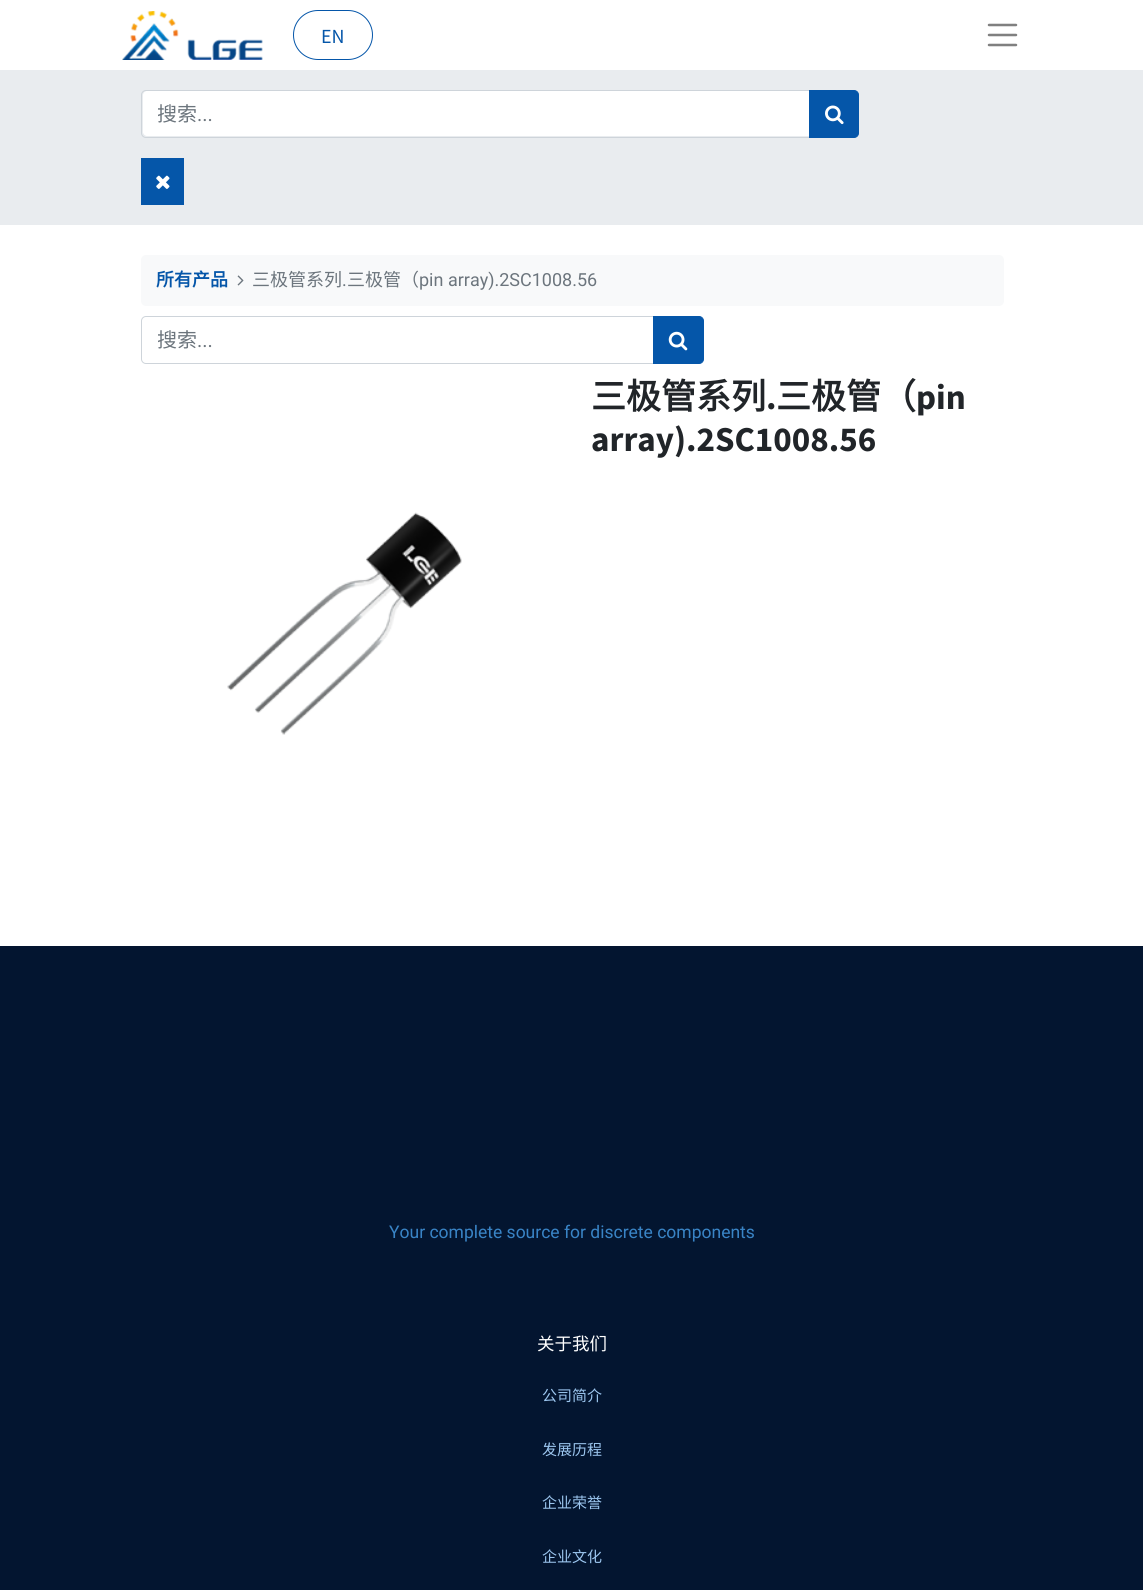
#include <cairo/cairo.h>
#include <math.h>
#include <stddef.h>

static cairo_t *cr;

static void use_color(int r, int g, int b) {
  cairo_set_source_rgb(cr, r / 255.0, g / 255.0, b / 255.0);
}

static void text(double x, double y, const char *s, const char *family, double size, int italic, int bold, int r, int g, int b) {
  cairo_select_font_face(cr, family, italic ? CAIRO_FONT_SLANT_ITALIC : CAIRO_FONT_SLANT_NORMAL,
    bold ? CAIRO_FONT_WEIGHT_BOLD : CAIRO_FONT_WEIGHT_NORMAL);
  cairo_set_font_size(cr, size);
  use_color(r, g, b);
  cairo_move_to(cr, x, y);
  cairo_show_text(cr, s);
}

static void box(double x, double y, double w, double h, int r, int g, int b) {
  use_color(r, g, b);
  cairo_rectangle(cr, x, y, w, h);
  cairo_fill(cr);
}

static void round_rect(double x, double y, double w, double h, double r) {
  cairo_new_sub_path(cr);
  cairo_arc(cr, x + w - r, y + h - r, r, 0, M_PI / 2);
  cairo_arc(cr, x + r, y + h - r, r, M_PI / 2, M_PI);
  cairo_arc(cr, x + r, y + r, r, M_PI, 1.5 * M_PI);
  cairo_arc(cr, x + w - r, y + r, r, 1.5 * M_PI, 2 * M_PI);
  cairo_close_path(cr);
}

static void picture(const char *path, double x, double y, double w, double h) {
  cairo_surface_t *image = cairo_image_surface_create_from_png(path);
  cairo_save(cr);
  cairo_set_source_surface(cr, image, x, y);
  cairo_rectangle(cr, x, y, w, h);
  cairo_fill(cr);
  cairo_restore(cr);
  cairo_surface_destroy(image);
}

static void draw(void) {
  use_color(255, 255, 255);
  cairo_paint(cr);
  picture("img_01.png", 122, 11, 141, 49);
  round_rect(293.5, 10.5, 79, 49, 24.5);
  use_color(5, 86, 169);
  cairo_set_line_width(cr, 1);
  cairo_stroke(cr);
  cairo_new_path(cr);
  cairo_move_to(cr, 989, 25);
  cairo_line_to(cr, 1016, 25);
  cairo_move_to(cr, 989, 35);
  cairo_line_to(cr, 1016, 35);
  cairo_move_to(cr, 989, 45);
  cairo_line_to(cr, 1016, 45);
  use_color(128, 128, 128);
  cairo_set_line_width(cr, 2.5);
  cairo_set_line_cap(cr, CAIRO_LINE_CAP_ROUND);
  cairo_stroke(cr);
  box(0, 70, 1143, 155, 233, 236, 239);
  use_color(255, 255, 255);
  cairo_new_path(cr);
  cairo_move_to(cr, 147, 91);
  cairo_line_to(cr, 809, 91);
  cairo_line_to(cr, 809, 136);
  cairo_line_to(cr, 147, 136);
  cairo_curve_to(cr, 145, 136, 143, 134, 143, 132);
  cairo_line_to(cr, 143, 95);
  cairo_curve_to(cr, 143, 93, 145, 91, 147, 91);
  cairo_close_path(cr);
  cairo_fill(cr);
  cairo_new_path(cr);
  cairo_move_to(cr, 146, 90.5);
  cairo_line_to(cr, 809.5, 90.5);
  cairo_line_to(cr, 809.5, 137.5);
  cairo_line_to(cr, 146, 137.5);
  cairo_curve_to(cr, 143.5, 137.5, 141.5, 135.5, 141.5, 133);
  cairo_line_to(cr, 141.5, 95);
  cairo_curve_to(cr, 141.5, 92.5, 143.5, 90.5, 146, 90.5);
  cairo_close_path(cr);
  use_color(206, 212, 218);
  cairo_set_line_width(cr, 1);
  cairo_set_line_cap(cr, CAIRO_LINE_CAP_BUTT);
  cairo_stroke(cr);
  use_color(5, 86, 169);
  cairo_new_path(cr);
  cairo_move_to(cr, 809.5, 90.5);
  cairo_line_to(cr, 854, 90.5);
  cairo_curve_to(cr, 856.5, 90.5, 858.5, 92.5, 858.5, 95);
  cairo_line_to(cr, 858.5, 133);
  cairo_curve_to(cr, 858.5, 135.5, 856.5, 137.5, 854, 137.5);
  cairo_line_to(cr, 809.5, 137.5);
  cairo_close_path(cr);
  cairo_fill_preserve(cr);
  cairo_stroke(cr);
  picture("img_02.png", 825, 105, 19, 20);
  box(141, 158, 43, 47, 5, 86, 169);
  picture("img_03.png", 156, 175, 14, 14);
  use_color(248, 249, 250);
  round_rect(141, 255, 863, 51, 5);
  cairo_fill(cr);
  picture("img_04.png", 237, 275, 7, 11);
  cairo_new_path(cr);
  cairo_move_to(cr, 146, 316.5);
  cairo_line_to(cr, 653.5, 316.5);
  cairo_line_to(cr, 653.5, 363.5);
  cairo_line_to(cr, 146, 363.5);
  cairo_curve_to(cr, 143.5, 363.5, 141.5, 361.5, 141.5, 359);
  cairo_line_to(cr, 141.5, 321);
  cairo_curve_to(cr, 141.5, 318.5, 143.5, 316.5, 146, 316.5);
  cairo_close_path(cr);
  use_color(206, 212, 218);
  cairo_stroke(cr);
  use_color(5, 86, 169);
  cairo_new_path(cr);
  cairo_move_to(cr, 653.5, 316.5);
  cairo_line_to(cr, 699, 316.5);
  cairo_curve_to(cr, 701.5, 316.5, 703.5, 318.5, 703.5, 321);
  cairo_line_to(cr, 703.5, 359);
  cairo_curve_to(cr, 703.5, 361.5, 701.5, 363.5, 699, 363.5);
  cairo_line_to(cr, 653.5, 363.5);
  cairo_close_path(cr);
  cairo_fill_preserve(cr);
  cairo_stroke(cr);
  picture("img_05.png", 668, 331, 20, 20);
  picture("img_06.png", 227, 512, 235, 223);
  box(0, 946, 1143, 644, 3, 21, 48);
  text(321, 43, "EN", "Source Sans Pro", 20, 0, 0, 5, 86, 169);
  cairo_save(cr);
  cairo_rectangle(cr, 158, 98, 603, 30);
  cairo_clip(cr);
  text(157, 121, "搜索", "Noto Sans CJK SC", 20, 0, 0, 108, 117, 125);
  cairo_restore(cr);
  text(197, 121, "...", "Roboto", 20, 0, 0, 108, 117, 125);
  text(156, 286, "所有产品", "Noto Sans CJK SC", 18, 0, 1, 5, 86, 169);
  text(252, 286, "三极管系列", "Noto Sans CJK SC", 18, 0, 0, 108, 117, 125);
  text(342, 286, ".", "Roboto", 18, 0, 0, 108, 117, 125);
  text(347, 286, "三极管（", "Noto Sans CJK SC", 18, 0, 0, 108, 117, 125);
  text(419, 286, "pin array).2SC1008.56", "Roboto", 18, 0, 0, 108, 117, 125);
  cairo_save(cr);
  cairo_rectangle(cr, 158, 324, 447, 30);
  cairo_clip(cr);
  text(157, 347, "搜索", "Noto Sans CJK SC", 20, 0, 0, 108, 117, 125);
  cairo_restore(cr);
  text(197, 347, "...", "Roboto", 20, 0, 0, 108, 117, 125);
  text(591, 409, "三极管系列", "Noto Sans CJK SC", 35, 0, 1, 33, 37, 41);
  text(766, 409, ".", "Source Sans Pro", 35, 0, 1, 33, 37, 41);
  text(776, 409, "三极管（", "Noto Sans CJK SC", 35, 0, 1, 33, 37, 41);
  text(916, 409, "pin", "Source Sans Pro", 35, 0, 1, 33, 37, 41);
  text(591, 451, "array).2SC1008.56", "Source Sans Pro", 35, 0, 1, 33, 37, 41);
  text(389, 1238, "Your complete source for discrete components", "Roboto", 17.5, 0, 0, 57, 132, 198);
  text(537, 1350, "关于我们", "Noto Sans CJK SC", 17.5, 0, 0, 255, 255, 255);
  text(542, 1401, "公司简介", "Noto Sans CJK SC", 15, 0, 0, 156, 198, 239);
  text(542, 1455, "发展历程", "Noto Sans CJK SC", 15, 0, 0, 156, 198, 239);
  text(542, 1508, "企业荣誉", "Noto Sans CJK SC", 15, 0, 0, 156, 198, 239);
  text(542, 1562, "企业文化", "Noto Sans CJK SC", 15, 0, 0, 156, 198, 239);
}

int main(void) {
  cairo_surface_t *surface = cairo_image_surface_create(CAIRO_FORMAT_RGB24, 1143, 1590);
  cr = cairo_create(surface);
  cairo_font_options_t *options = cairo_font_options_create();
  cairo_font_options_set_hint_metrics(options, CAIRO_HINT_METRICS_OFF);
  cairo_font_options_set_hint_style(options, CAIRO_HINT_STYLE_NONE);
  cairo_set_font_options(cr, options);
  cairo_set_miter_limit(cr, 4);
  draw();
  cairo_surface_write_to_png(surface, "out.png");
  cairo_font_options_destroy(options);
  cairo_destroy(cr);
  cairo_surface_destroy(surface);
  return 0;
}
